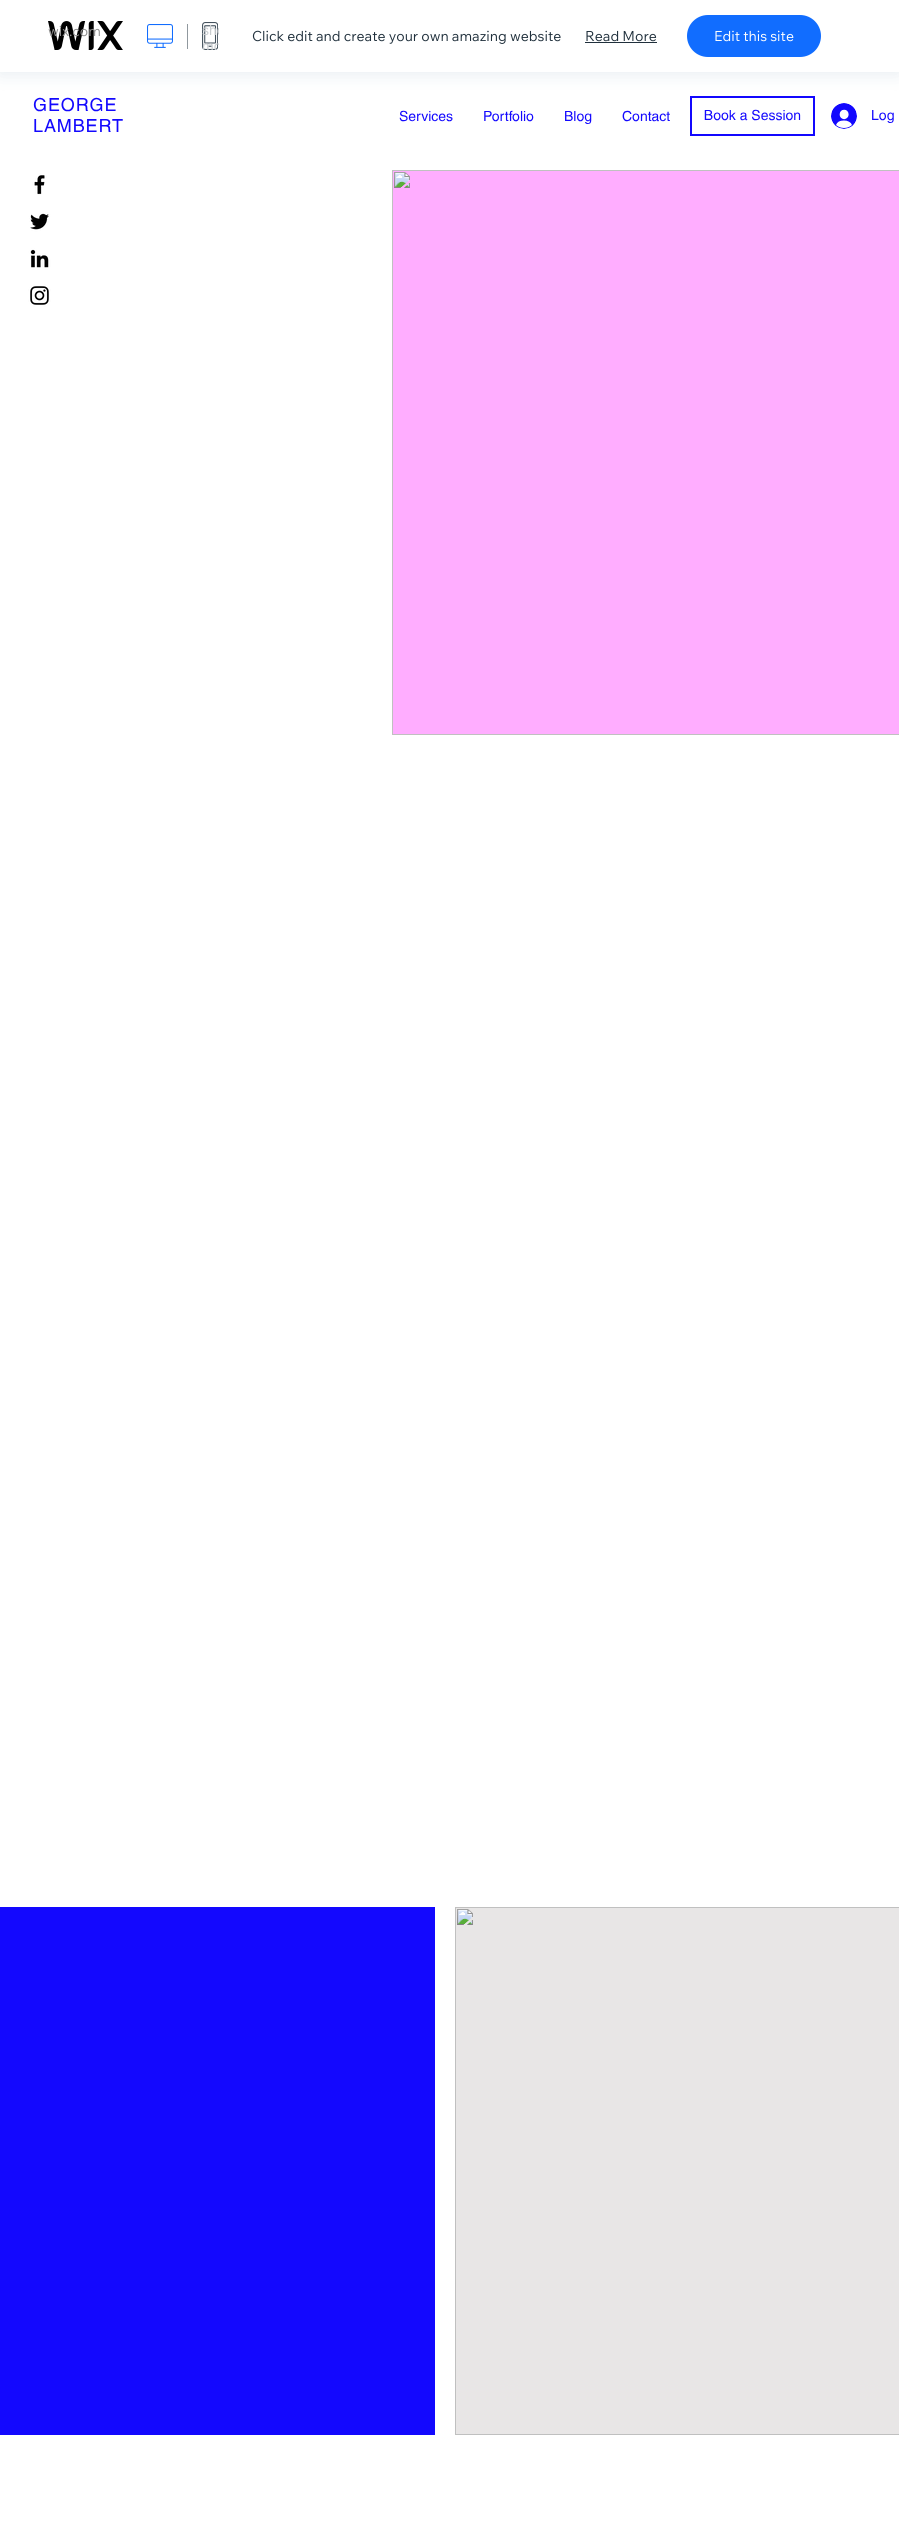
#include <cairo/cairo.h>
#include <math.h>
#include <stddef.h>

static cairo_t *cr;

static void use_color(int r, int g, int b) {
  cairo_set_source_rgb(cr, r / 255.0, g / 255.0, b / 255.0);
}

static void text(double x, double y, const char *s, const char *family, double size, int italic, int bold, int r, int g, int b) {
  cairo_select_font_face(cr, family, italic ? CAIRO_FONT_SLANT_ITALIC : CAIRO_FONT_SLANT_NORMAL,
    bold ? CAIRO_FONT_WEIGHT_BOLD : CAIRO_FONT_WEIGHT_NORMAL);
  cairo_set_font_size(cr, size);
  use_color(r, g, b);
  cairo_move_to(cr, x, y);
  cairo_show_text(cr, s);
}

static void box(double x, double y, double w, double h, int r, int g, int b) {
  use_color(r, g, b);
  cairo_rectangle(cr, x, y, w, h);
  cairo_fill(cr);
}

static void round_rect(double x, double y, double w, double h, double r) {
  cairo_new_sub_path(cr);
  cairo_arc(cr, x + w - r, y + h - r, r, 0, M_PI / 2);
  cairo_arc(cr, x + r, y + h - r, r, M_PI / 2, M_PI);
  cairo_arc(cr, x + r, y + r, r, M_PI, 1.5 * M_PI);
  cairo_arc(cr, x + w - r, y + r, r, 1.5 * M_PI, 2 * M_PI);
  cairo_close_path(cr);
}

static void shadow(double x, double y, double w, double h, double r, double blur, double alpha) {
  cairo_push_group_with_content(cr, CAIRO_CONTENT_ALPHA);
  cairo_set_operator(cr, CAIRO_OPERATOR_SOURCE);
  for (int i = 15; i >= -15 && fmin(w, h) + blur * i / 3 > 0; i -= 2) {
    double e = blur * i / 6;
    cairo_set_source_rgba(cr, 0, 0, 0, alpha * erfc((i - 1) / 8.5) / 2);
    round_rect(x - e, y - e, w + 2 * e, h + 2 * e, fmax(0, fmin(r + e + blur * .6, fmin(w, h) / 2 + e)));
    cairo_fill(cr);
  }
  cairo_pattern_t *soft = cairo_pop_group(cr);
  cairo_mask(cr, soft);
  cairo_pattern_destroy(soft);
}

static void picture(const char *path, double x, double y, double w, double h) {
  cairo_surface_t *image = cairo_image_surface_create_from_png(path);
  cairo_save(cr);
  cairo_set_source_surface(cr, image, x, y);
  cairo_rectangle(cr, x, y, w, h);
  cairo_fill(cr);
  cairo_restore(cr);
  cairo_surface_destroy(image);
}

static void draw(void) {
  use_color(255, 255, 255);
  cairo_paint(cr);
  picture("img_04.png", 0, 72, 899, 2462);
  use_color(129, 162, 182);
  shadow(0, 2, 899, 72, 0, 9, 0.2);
  box(0, 0, 899, 72, 255, 255, 255);
  picture("img_01.png", 48, 21, 75, 29);
  picture("img_02.png", 147, 24, 26, 24);
  box(187, 24, 1, 25, 144, 152, 158);
  picture("img_03.png", 202, 22, 16, 28);
  box(585, 42, 72, 1, 32, 48, 60);
  use_color(17, 109, 255);
  round_rect(687, 15, 134, 42, 21);
  cairo_fill(cr);
  text(48, 36, "wix.com", "Wix Madefor Text", 14, 0, 0, 143, 143, 143);
  cairo_save(cr);
  cairo_rectangle(cr, 202, 22, 17, 28);
  cairo_clip(cr);
  text(202, 35, "sho", "Liberation Sans", 14, 0, 0, 201, 205, 208);
  text(202, 51, "mo", "Liberation Sans", 14, 0, 0, 201, 205, 208);
  cairo_restore(cr);
  text(252, 41, "Click edit and create your own amazing website", "Wix Madefor Text", 14, 0, 0, 32, 48, 60);
  text(585, 41, "Read More", "Wix Madefor Text", 14, 0, 0, 32, 48, 60);
  text(714, 41, "Edit this site", "Wix Madefor Text", 14, 0, 0, 255, 255, 255);
}

int main(void) {
  cairo_surface_t *surface = cairo_image_surface_create(CAIRO_FORMAT_RGB24, 899, 2534);
  cr = cairo_create(surface);
  cairo_font_options_t *options = cairo_font_options_create();
  cairo_font_options_set_hint_metrics(options, CAIRO_HINT_METRICS_OFF);
  cairo_font_options_set_hint_style(options, CAIRO_HINT_STYLE_NONE);
  cairo_set_font_options(cr, options);
  cairo_set_miter_limit(cr, 4);
  draw();
  cairo_surface_write_to_png(surface, "out.png");
  cairo_font_options_destroy(options);
  cairo_destroy(cr);
  cairo_surface_destroy(surface);
  return 0;
}
